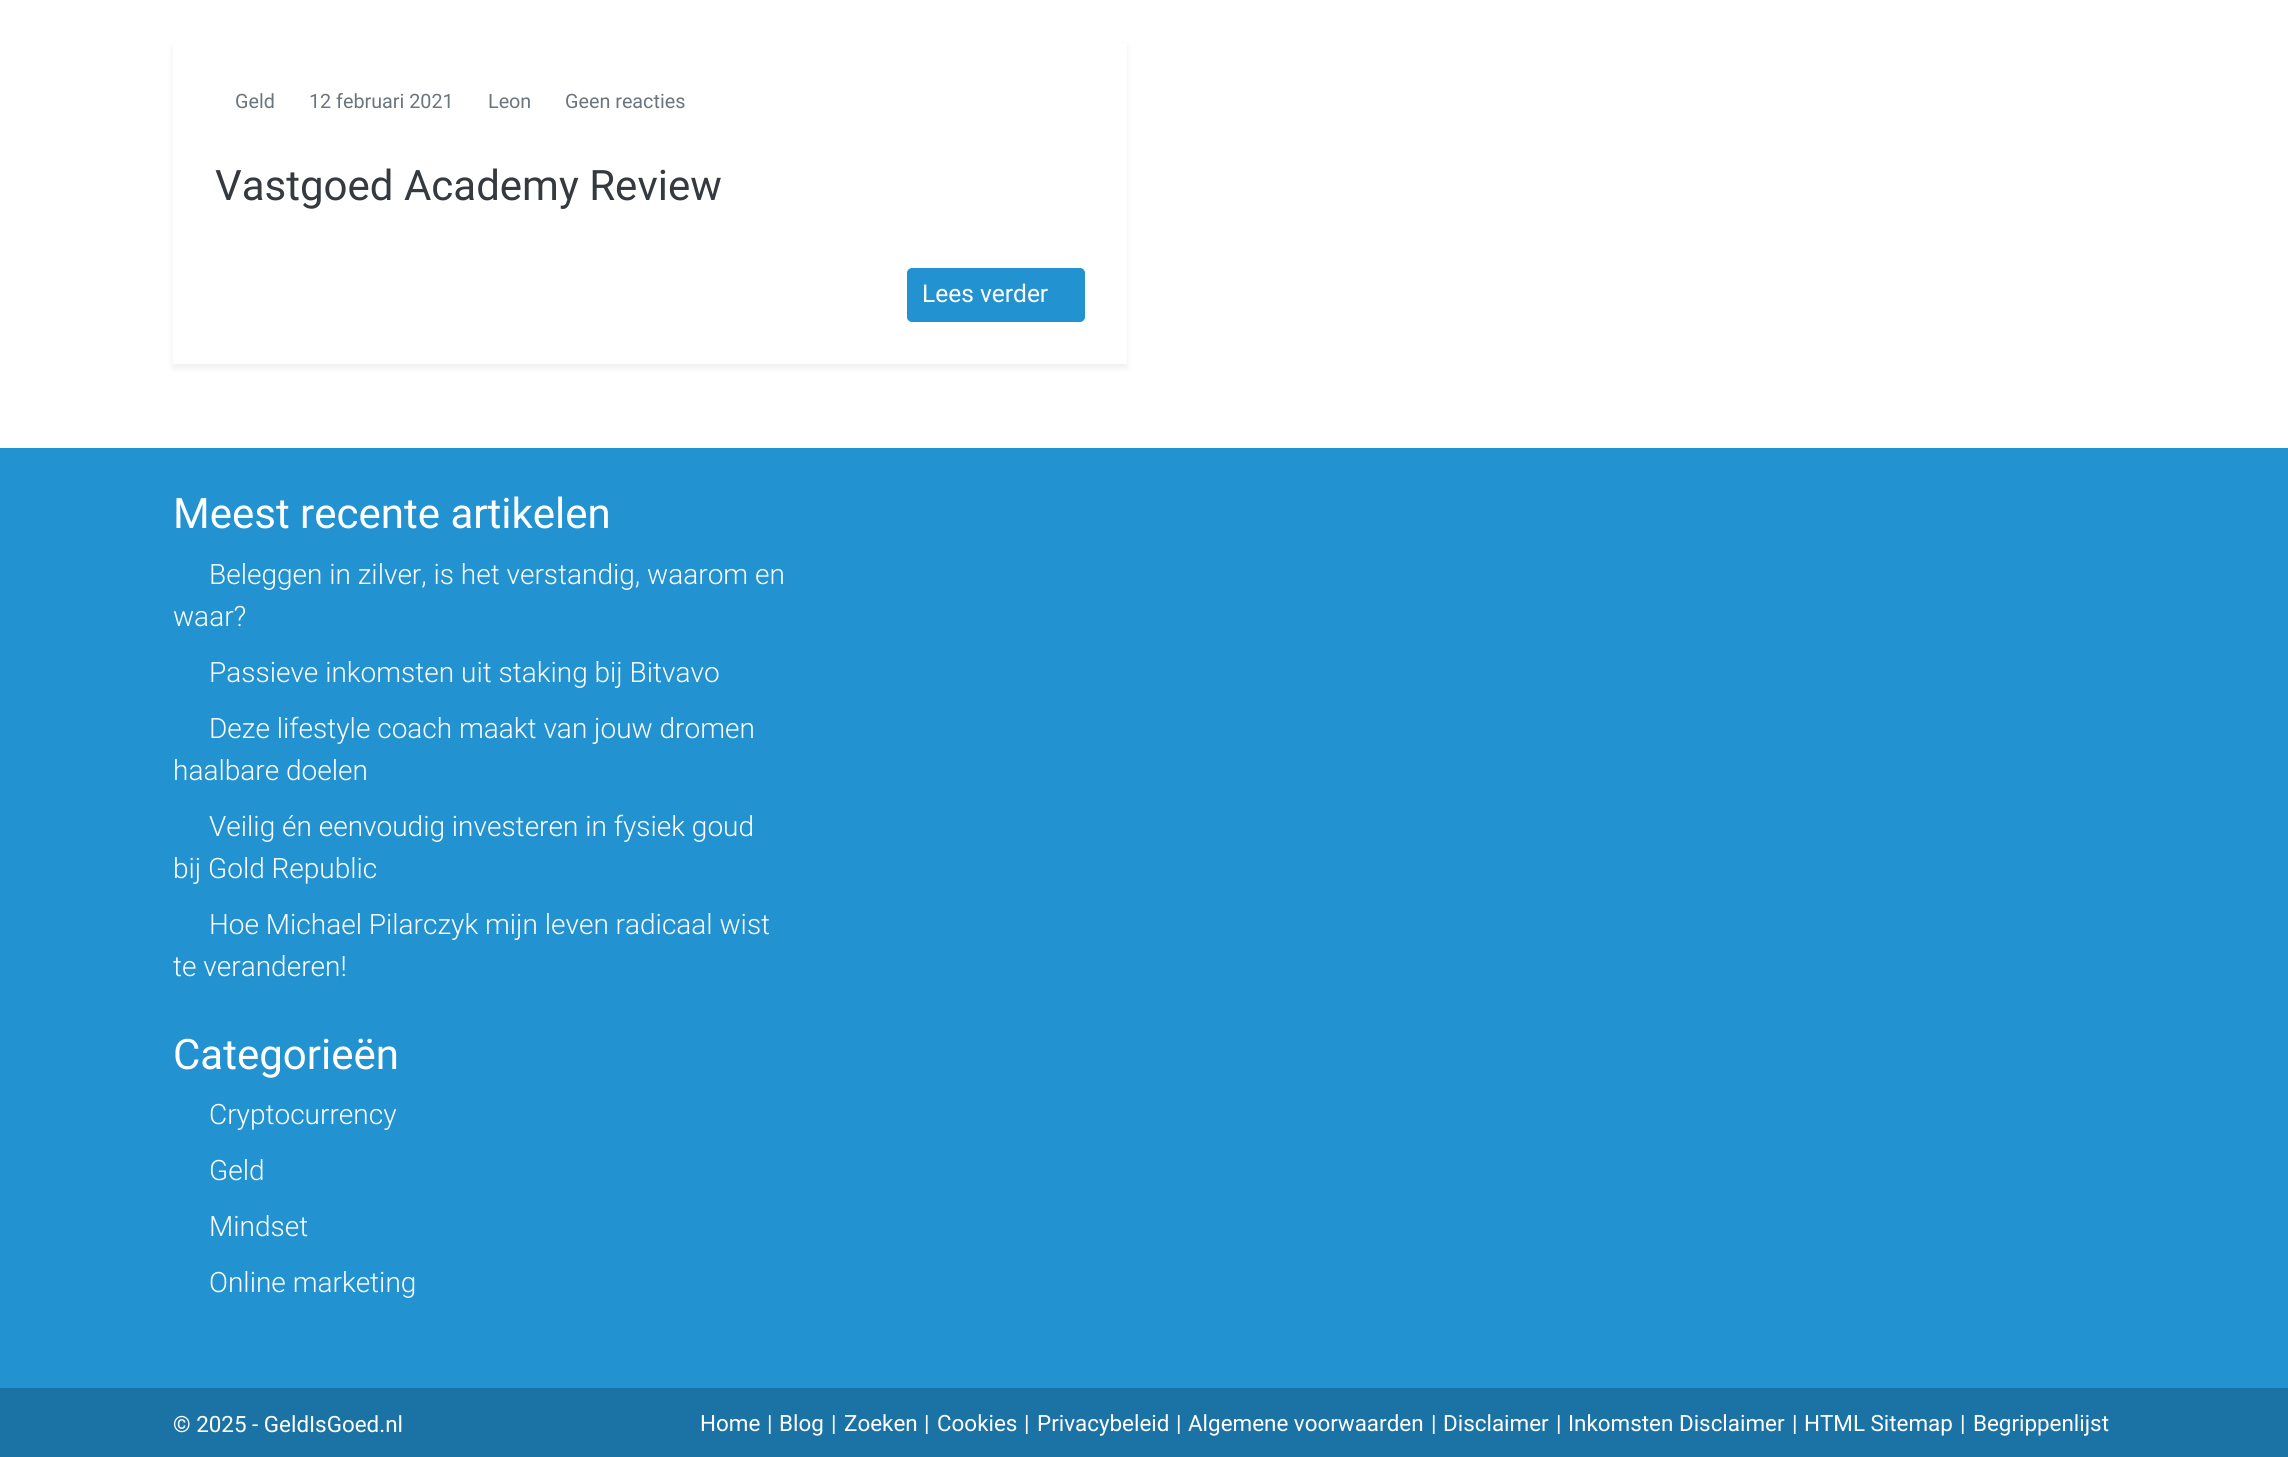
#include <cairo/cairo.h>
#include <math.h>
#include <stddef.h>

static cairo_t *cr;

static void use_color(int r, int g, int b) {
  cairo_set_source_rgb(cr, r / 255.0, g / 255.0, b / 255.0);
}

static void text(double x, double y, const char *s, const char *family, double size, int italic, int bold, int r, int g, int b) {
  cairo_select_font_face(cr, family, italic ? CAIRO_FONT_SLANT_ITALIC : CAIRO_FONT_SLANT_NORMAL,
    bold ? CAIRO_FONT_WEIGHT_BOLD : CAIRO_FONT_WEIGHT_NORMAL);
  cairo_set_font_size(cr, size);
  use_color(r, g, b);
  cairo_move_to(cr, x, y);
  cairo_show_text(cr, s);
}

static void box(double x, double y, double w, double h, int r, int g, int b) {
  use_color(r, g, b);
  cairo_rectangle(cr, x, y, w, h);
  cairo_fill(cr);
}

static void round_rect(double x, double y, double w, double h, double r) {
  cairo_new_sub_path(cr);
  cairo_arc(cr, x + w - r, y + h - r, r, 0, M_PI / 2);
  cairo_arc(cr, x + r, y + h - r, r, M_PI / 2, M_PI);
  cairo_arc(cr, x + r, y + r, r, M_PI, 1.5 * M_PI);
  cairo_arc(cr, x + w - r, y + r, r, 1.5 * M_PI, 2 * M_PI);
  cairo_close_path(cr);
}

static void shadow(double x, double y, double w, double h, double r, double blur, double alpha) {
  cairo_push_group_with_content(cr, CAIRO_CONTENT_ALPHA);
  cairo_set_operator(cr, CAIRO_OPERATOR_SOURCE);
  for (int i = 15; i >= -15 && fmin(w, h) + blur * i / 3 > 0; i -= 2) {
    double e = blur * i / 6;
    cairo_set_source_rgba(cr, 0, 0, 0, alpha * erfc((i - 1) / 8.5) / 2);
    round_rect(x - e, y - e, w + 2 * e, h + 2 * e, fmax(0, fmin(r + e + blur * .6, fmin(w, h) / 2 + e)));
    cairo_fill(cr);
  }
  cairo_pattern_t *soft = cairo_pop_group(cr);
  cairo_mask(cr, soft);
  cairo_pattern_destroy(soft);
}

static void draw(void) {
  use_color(255, 255, 255);
  cairo_paint(cr);
  cairo_save(cr);
  cairo_set_fill_rule(cr, CAIRO_FILL_RULE_EVEN_ODD);
  cairo_new_path(cr);
  cairo_move_to(cr, 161, 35);
  cairo_line_to(cr, 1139, 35);
  cairo_line_to(cr, 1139, 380);
  cairo_line_to(cr, 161, 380);
  cairo_close_path(cr);
  cairo_move_to(cr, 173, 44);
  cairo_line_to(cr, 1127, 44);
  cairo_line_to(cr, 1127, 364);
  cairo_line_to(cr, 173, 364);
  cairo_close_path(cr);
  cairo_clip(cr);
  use_color(0, 0, 0);
  shadow(173, 47, 954, 321, 0, 3.5, 0.07);
  cairo_restore(cr);
  use_color(34, 146, 209);
  round_rect(908, 269, 176, 52, 4);
  cairo_fill_preserve(cr);
  cairo_stroke(cr);
  box(0, 448, 2288, 940, 34, 146, 209);
  box(0, 1388, 2288, 69, 27, 115, 165);
  text(235, 108, "Geld", "Roboto", 19.75, 0, 0, 108, 117, 125);
  text(309, 108, "12 februari 2021", "Roboto", 19.75, 0, 0, 108, 117, 125);
  text(488, 108, "Leon", "Roboto", 19.75, 0, 0, 108, 117, 125);
  text(565, 108, "Geen reacties", "Roboto", 19.75, 0, 0, 108, 117, 125);
  text(215, 200, "Vastgoed Academy Review", "Roboto", 42, 0, 0, 52, 58, 64);
  text(922, 302, "Lees verder", "Roboto", 24.5, 0, 0, 255, 255, 255);
  text(173, 528, "Meest recente artikelen", "Roboto", 42, 0, 0, 255, 255, 255);
  text(209, 584, "Beleggen in zilver, is het verstandig, waarom en", "Roboto Light", 28, 0, 0, 255, 255, 255);
  text(173, 626, "waar?", "Roboto Light", 28, 0, 0, 255, 255, 255);
  text(209, 682, "Passieve inkomsten uit staking bij Bitvavo", "Roboto Light", 28, 0, 0, 255, 255, 255);
  text(209, 738, "Deze lifestyle coach maakt van jouw dromen", "Roboto Light", 28, 0, 0, 255, 255, 255);
  text(173, 780, "haalbare doelen", "Roboto Light", 28, 0, 0, 255, 255, 255);
  text(209, 836, "Veilig én eenvoudig investeren in fysiek goud", "Roboto Light", 28, 0, 0, 255, 255, 255);
  text(173, 878, "bij Gold Republic", "Roboto Light", 28, 0, 0, 255, 255, 255);
  text(209, 934, "Hoe Michael Pilarczyk mijn leven radicaal wist", "Roboto Light", 28, 0, 0, 255, 255, 255);
  text(173, 976, "te veranderen!", "Roboto Light", 28, 0, 0, 255, 255, 255);
  text(173, 1069, "Categorieën", "Roboto", 42, 0, 0, 255, 255, 255);
  text(209, 1124, "Cryptocurrency", "Roboto Light", 28, 0, 0, 255, 255, 255);
  text(209, 1180, "Geld", "Roboto Light", 28, 0, 0, 255, 255, 255);
  text(209, 1236, "Mindset", "Roboto Light", 28, 0, 0, 255, 255, 255);
  text(209, 1292, "Online marketing", "Roboto Light", 28, 0, 0, 255, 255, 255);
  text(173, 1432, "© 2025 - GeldIsGoed.nl", "Roboto", 22.4, 0, 0, 255, 255, 255);
  text(700, 1431, "Home", "Roboto", 22.4, 0, 0, 255, 255, 255);
  text(767, 1431, "|", "Roboto", 22.4, 0, 0, 255, 255, 255);
  text(779, 1431, "Blog", "Roboto", 22.4, 0, 0, 255, 255, 255);
  text(831, 1431, "|", "Roboto", 22.4, 0, 0, 255, 255, 255);
  text(844, 1431, "Zoeken", "Roboto", 22.4, 0, 0, 255, 255, 255);
  text(924, 1431, "|", "Roboto", 22.4, 0, 0, 255, 255, 255);
  text(937, 1431, "Cookies", "Roboto", 22.4, 0, 0, 255, 255, 255);
  text(1024, 1431, "|", "Roboto", 22.4, 0, 0, 255, 255, 255);
  text(1037, 1431, "Privacybeleid", "Roboto", 22.4, 0, 0, 255, 255, 255);
  text(1176, 1431, "|", "Roboto", 22.4, 0, 0, 255, 255, 255);
  text(1188, 1431, "Algemene voorwaarden", "Roboto", 22.4, 0, 0, 255, 255, 255);
  text(1431, 1431, "|", "Roboto", 22.4, 0, 0, 255, 255, 255);
  text(1443, 1431, "Disclaimer", "Roboto", 22.4, 0, 0, 255, 255, 255);
  text(1556, 1431, "|", "Roboto", 22.4, 0, 0, 255, 255, 255);
  text(1568, 1431, "Inkomsten Disclaimer", "Roboto", 22.4, 0, 0, 255, 255, 255);
  text(1792, 1431, "|", "Roboto", 22.4, 0, 0, 255, 255, 255);
  text(1804, 1431, "HTML Sitemap", "Roboto", 22.4, 0, 0, 255, 255, 255);
  text(1960, 1431, "|", "Roboto", 22.4, 0, 0, 255, 255, 255);
  text(1973, 1431, "Begrippenlijst", "Roboto", 22.4, 0, 0, 255, 255, 255);
}

int main(void) {
  cairo_surface_t *surface = cairo_image_surface_create(CAIRO_FORMAT_RGB24, 2288, 1457);
  cr = cairo_create(surface);
  cairo_font_options_t *options = cairo_font_options_create();
  cairo_font_options_set_hint_metrics(options, CAIRO_HINT_METRICS_OFF);
  cairo_font_options_set_hint_style(options, CAIRO_HINT_STYLE_NONE);
  cairo_set_font_options(cr, options);
  cairo_set_miter_limit(cr, 4);
  draw();
  cairo_surface_write_to_png(surface, "out.png");
  cairo_font_options_destroy(options);
  cairo_destroy(cr);
  cairo_surface_destroy(surface);
  return 0;
}
